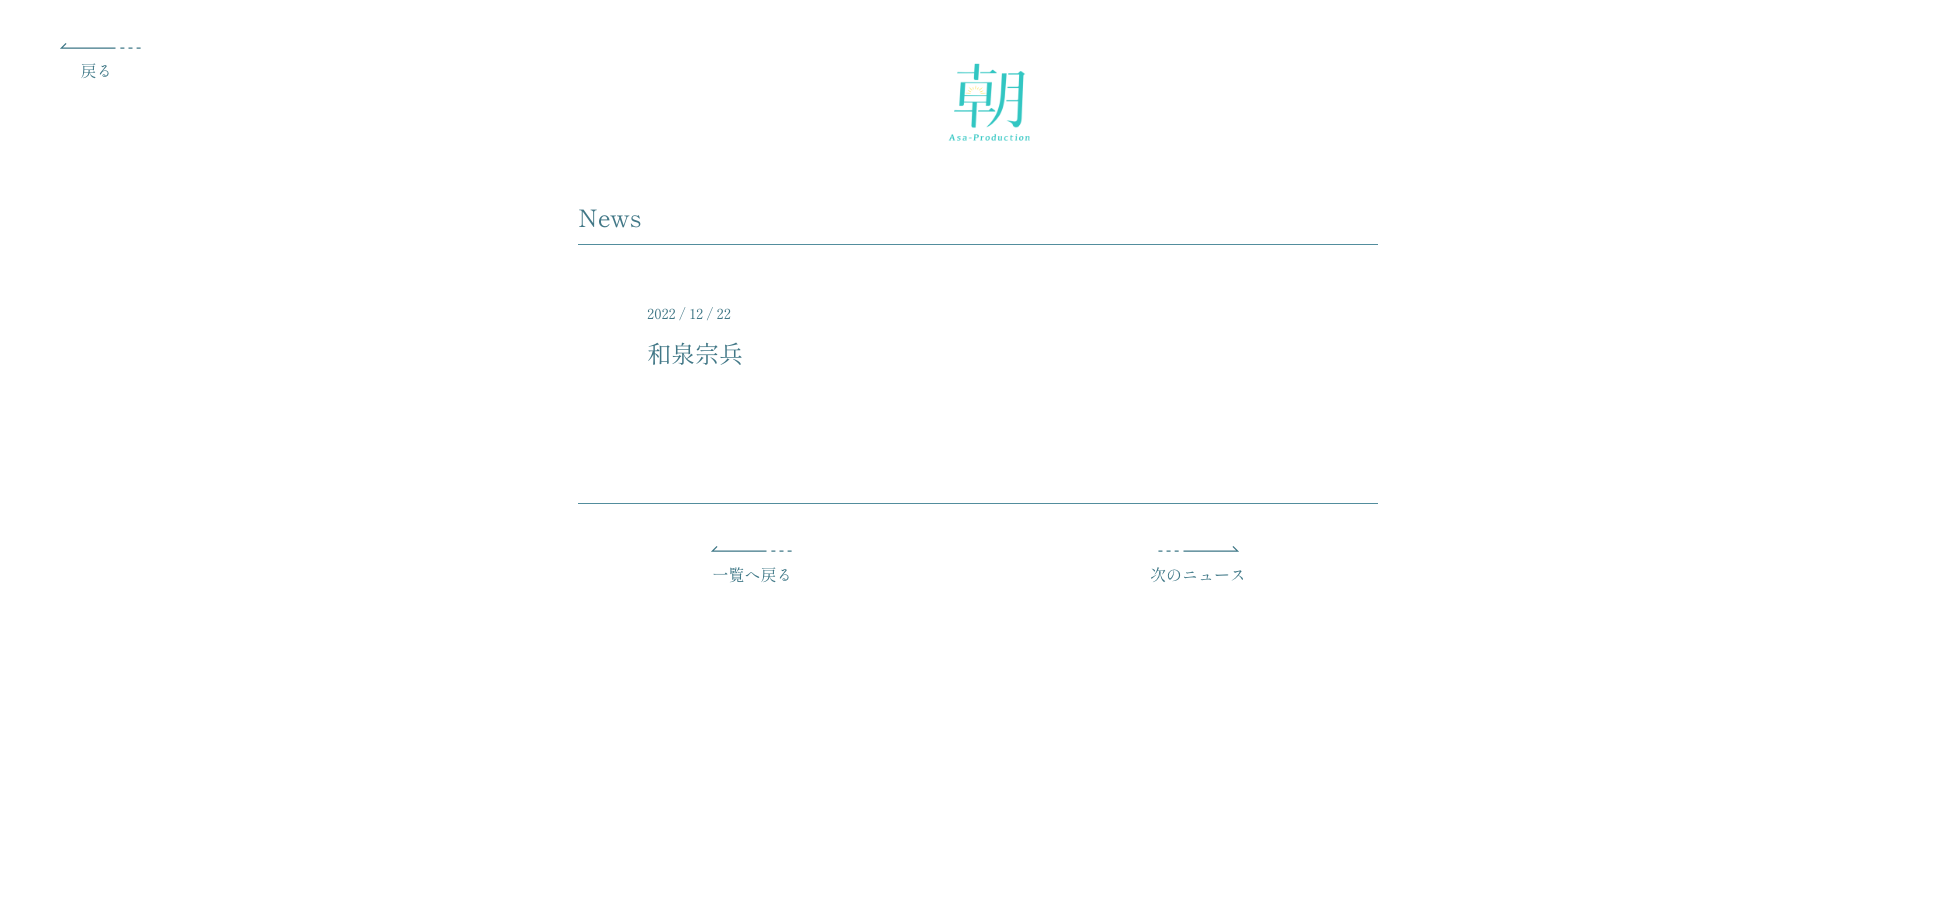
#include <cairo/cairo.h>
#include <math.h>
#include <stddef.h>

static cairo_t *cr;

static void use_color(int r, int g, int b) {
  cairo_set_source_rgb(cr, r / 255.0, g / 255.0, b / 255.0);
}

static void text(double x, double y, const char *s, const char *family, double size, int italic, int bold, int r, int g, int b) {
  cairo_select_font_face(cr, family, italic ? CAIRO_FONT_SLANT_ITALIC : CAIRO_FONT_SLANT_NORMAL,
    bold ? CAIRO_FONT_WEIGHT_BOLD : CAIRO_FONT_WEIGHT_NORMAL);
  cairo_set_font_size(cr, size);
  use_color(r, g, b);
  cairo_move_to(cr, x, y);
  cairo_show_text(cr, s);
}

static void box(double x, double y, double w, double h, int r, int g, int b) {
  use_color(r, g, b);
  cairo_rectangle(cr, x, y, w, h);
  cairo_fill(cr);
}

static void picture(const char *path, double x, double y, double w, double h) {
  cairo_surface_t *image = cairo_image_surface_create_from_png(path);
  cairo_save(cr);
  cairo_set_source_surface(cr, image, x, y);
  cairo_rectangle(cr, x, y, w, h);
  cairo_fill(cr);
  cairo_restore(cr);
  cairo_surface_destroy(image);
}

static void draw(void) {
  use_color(255, 255, 255);
  cairo_paint(cr);
  picture("img_01.png", 60, 43, 81, 36);
  picture("img_02.png", 948, 63, 82, 78);
  box(578, 244, 800, 1, 82, 141, 157);
  box(578, 503, 800, 1, 82, 141, 157);
  picture("img_03.png", 711, 546, 81, 37);
  picture("img_04.png", 1151, 546, 92, 37);
  text(578, 227, "News", "Shippori Mincho", 24, 0, 0, 65, 119, 134);
  text(647, 319, "2022 / 12 / 22", "Shippori Mincho", 14, 0, 0, 65, 119, 134);
  text(647, 363, "和泉宗兵", "Shippori Mincho", 24, 0, 0, 65, 119, 134);
}

int main(void) {
  cairo_surface_t *surface = cairo_image_surface_create(CAIRO_FORMAT_RGB24, 1956, 915);
  cr = cairo_create(surface);
  cairo_font_options_t *options = cairo_font_options_create();
  cairo_font_options_set_hint_metrics(options, CAIRO_HINT_METRICS_OFF);
  cairo_font_options_set_hint_style(options, CAIRO_HINT_STYLE_NONE);
  cairo_set_font_options(cr, options);
  cairo_set_miter_limit(cr, 4);
  draw();
  cairo_surface_write_to_png(surface, "out.png");
  cairo_font_options_destroy(options);
  cairo_destroy(cr);
  cairo_surface_destroy(surface);
  return 0;
}
